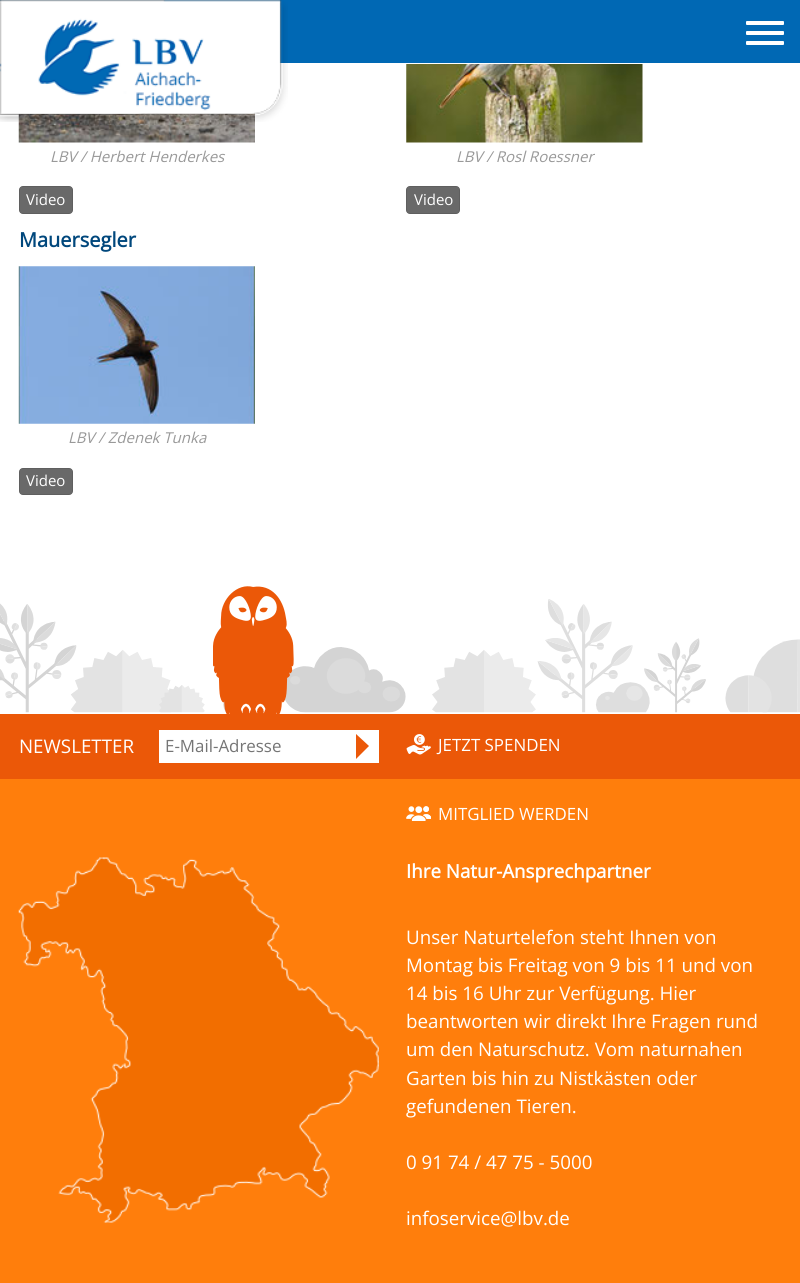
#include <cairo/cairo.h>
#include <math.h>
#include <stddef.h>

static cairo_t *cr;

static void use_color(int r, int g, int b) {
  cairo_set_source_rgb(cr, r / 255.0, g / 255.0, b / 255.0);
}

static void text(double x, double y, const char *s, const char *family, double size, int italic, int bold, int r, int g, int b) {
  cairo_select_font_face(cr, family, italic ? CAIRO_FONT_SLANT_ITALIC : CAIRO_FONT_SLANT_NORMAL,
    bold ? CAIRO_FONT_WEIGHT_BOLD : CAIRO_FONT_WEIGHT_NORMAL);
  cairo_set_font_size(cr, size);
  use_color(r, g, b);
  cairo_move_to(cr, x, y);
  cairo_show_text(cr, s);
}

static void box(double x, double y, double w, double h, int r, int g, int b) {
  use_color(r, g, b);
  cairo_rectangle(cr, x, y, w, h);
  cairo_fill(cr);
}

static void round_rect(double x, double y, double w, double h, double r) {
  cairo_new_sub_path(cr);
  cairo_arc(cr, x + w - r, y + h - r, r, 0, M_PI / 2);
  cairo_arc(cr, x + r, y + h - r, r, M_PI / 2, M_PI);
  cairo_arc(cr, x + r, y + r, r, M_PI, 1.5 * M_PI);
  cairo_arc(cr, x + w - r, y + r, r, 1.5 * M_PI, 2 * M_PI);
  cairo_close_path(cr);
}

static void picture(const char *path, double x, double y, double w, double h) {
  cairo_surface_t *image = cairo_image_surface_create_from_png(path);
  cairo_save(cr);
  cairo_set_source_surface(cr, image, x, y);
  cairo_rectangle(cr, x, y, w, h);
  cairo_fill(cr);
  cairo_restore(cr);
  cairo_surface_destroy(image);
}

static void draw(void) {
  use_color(255, 255, 255);
  cairo_paint(cr);
  box(0, 0, 800, 63, 0, 104, 180);
  picture("img_03.png", 18, 112, 237, 31);
  picture("img_01.png", 0, 0, 166, 122);
  picture("img_02.png", 0, 0, 288, 122);
  use_color(255, 255, 255);
  round_rect(746, 21, 38, 4, 1);
  cairo_fill(cr);
  round_rect(746, 31, 38, 4, 1);
  cairo_fill(cr);
  round_rect(746, 41, 38, 4, 1);
  cairo_fill(cr);
  use_color(105, 105, 105);
  round_rect(19.5, 186.5, 53, 27, 3.5);
  cairo_fill_preserve(cr);
  use_color(95, 95, 95);
  cairo_set_line_width(cr, 1);
  cairo_stroke(cr);
  picture("img_04.png", 406, 64, 237, 79);
  use_color(105, 105, 105);
  round_rect(406.5, 186.5, 53, 27, 3.5);
  cairo_fill_preserve(cr);
  use_color(95, 95, 95);
  cairo_stroke(cr);
  picture("img_05.png", 18, 266, 237, 158);
  use_color(105, 105, 105);
  round_rect(19.5, 468.5, 53, 26, 3.5);
  cairo_fill_preserve(cr);
  use_color(95, 95, 95);
  cairo_stroke(cr);
  picture("img_07.png", 0, 599, 800, 114);
  picture("img_06.png", 213, 586, 81, 128);
  box(0, 714, 800, 65, 235, 88, 8);
  box(0, 779, 800, 504, 255, 126, 12);
  box(159, 730, 220, 33, 255, 255, 255);
  use_color(235, 88, 8);
  cairo_new_path(cr);
  cairo_move_to(cr, 356, 759);
  cairo_line_to(cr, 356, 734);
  cairo_line_to(cr, 369, 746);
  cairo_close_path(cr);
  cairo_fill(cr);
  picture("img_08.png", 406, 734, 25, 21);
  picture("img_09.png", 406, 806, 25, 15);
  picture("img_10.png", 18, 857, 361, 366);
  text(50, 162, "LBV / Herbert Henderkes", "Open Sans", 15, 1, 0, 153, 153, 153);
  text(26, 205, "Video", "Open Sans", 15, 0, 0, 255, 255, 255);
  text(456, 162, "LBV / Rosl Roessner", "Open Sans", 15, 1, 0, 153, 153, 153);
  text(414, 205, "Video", "Open Sans", 15, 0, 0, 255, 255, 255);
  text(19, 247, "Mauersegler", "Open Sans", 20, 0, 1, 0, 71, 124);
  text(68, 443, "LBV / Zdenek Tunka", "Open Sans", 15, 1, 0, 153, 153, 153);
  text(26, 486, "Video", "Open Sans", 15, 0, 0, 255, 255, 255);
  text(19, 753, "NEWSLETTER", "Open Sans", 18.75, 0, 0, 255, 255, 255);
  text(165, 752, "E-Mail-Adresse", "Open Sans", 16.9, 0, 0, 117, 117, 117);
  text(438, 751, "JETZT SPENDEN", "Open Sans", 16.9, 0, 0, 255, 255, 255);
  text(438, 820, "MITGLIED WERDEN", "Open Sans", 16.9, 0, 0, 255, 255, 255);
  text(406, 878, "Ihre Natur-Ansprechpartner", "Open Sans", 18.75, 0, 1, 255, 255, 255);
  text(406, 944, "Unser Naturtelefon steht Ihnen von", "Open Sans", 18.75, 0, 0, 255, 255, 255);
  text(406, 972, "Montag bis Freitag von 9 bis 11 und von", "Open Sans", 18.75, 0, 0, 255, 255, 255);
  text(406, 1000, "14 bis 16 Uhr zur Verfügung. Hier", "Open Sans", 18.75, 0, 0, 255, 255, 255);
  text(406, 1028, "beantworten wir direkt Ihre Fragen rund", "Open Sans", 18.75, 0, 0, 255, 255, 255);
  text(406, 1056, "um den Naturschutz. Vom naturnahen", "Open Sans", 18.75, 0, 0, 255, 255, 255);
  text(406, 1085, "Garten bis hin zu Nistkästen oder", "Open Sans", 18.75, 0, 0, 255, 255, 255);
  text(406, 1113, "gefundenen Tieren.", "Open Sans", 18.75, 0, 0, 255, 255, 255);
  text(406, 1169, "0 91 74 / 47 75 - 5000", "Open Sans", 18.75, 0, 0, 255, 255, 255);
  text(406, 1225, "infoservice@lbv.de", "Open Sans", 18.75, 0, 0, 255, 255, 255);
}

int main(void) {
  cairo_surface_t *surface = cairo_image_surface_create(CAIRO_FORMAT_RGB24, 800, 1283);
  cr = cairo_create(surface);
  cairo_font_options_t *options = cairo_font_options_create();
  cairo_font_options_set_hint_metrics(options, CAIRO_HINT_METRICS_OFF);
  cairo_font_options_set_hint_style(options, CAIRO_HINT_STYLE_NONE);
  cairo_set_font_options(cr, options);
  cairo_set_miter_limit(cr, 4);
  draw();
  cairo_surface_write_to_png(surface, "out.png");
  cairo_font_options_destroy(options);
  cairo_destroy(cr);
  cairo_surface_destroy(surface);
  return 0;
}
